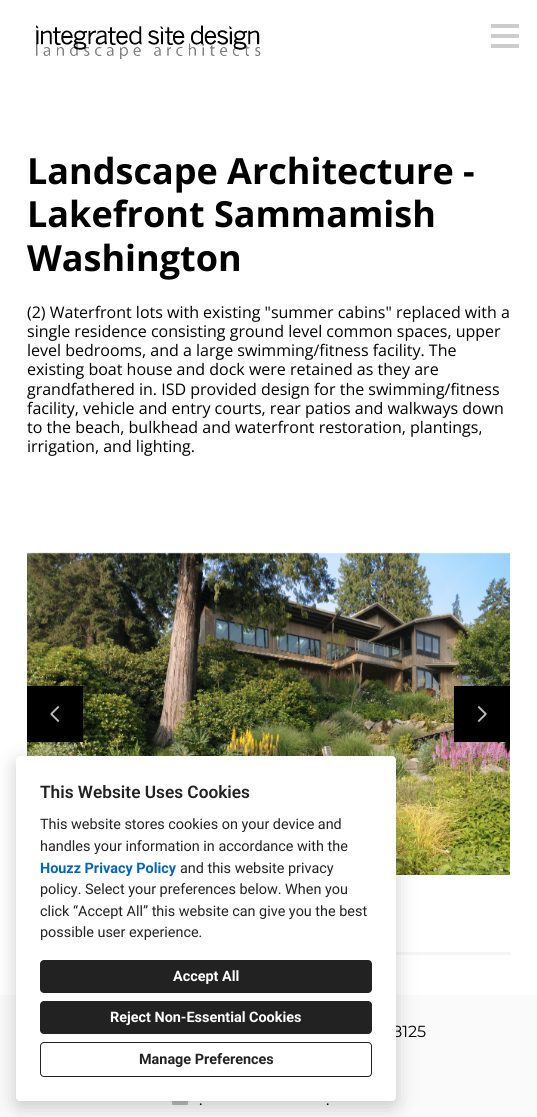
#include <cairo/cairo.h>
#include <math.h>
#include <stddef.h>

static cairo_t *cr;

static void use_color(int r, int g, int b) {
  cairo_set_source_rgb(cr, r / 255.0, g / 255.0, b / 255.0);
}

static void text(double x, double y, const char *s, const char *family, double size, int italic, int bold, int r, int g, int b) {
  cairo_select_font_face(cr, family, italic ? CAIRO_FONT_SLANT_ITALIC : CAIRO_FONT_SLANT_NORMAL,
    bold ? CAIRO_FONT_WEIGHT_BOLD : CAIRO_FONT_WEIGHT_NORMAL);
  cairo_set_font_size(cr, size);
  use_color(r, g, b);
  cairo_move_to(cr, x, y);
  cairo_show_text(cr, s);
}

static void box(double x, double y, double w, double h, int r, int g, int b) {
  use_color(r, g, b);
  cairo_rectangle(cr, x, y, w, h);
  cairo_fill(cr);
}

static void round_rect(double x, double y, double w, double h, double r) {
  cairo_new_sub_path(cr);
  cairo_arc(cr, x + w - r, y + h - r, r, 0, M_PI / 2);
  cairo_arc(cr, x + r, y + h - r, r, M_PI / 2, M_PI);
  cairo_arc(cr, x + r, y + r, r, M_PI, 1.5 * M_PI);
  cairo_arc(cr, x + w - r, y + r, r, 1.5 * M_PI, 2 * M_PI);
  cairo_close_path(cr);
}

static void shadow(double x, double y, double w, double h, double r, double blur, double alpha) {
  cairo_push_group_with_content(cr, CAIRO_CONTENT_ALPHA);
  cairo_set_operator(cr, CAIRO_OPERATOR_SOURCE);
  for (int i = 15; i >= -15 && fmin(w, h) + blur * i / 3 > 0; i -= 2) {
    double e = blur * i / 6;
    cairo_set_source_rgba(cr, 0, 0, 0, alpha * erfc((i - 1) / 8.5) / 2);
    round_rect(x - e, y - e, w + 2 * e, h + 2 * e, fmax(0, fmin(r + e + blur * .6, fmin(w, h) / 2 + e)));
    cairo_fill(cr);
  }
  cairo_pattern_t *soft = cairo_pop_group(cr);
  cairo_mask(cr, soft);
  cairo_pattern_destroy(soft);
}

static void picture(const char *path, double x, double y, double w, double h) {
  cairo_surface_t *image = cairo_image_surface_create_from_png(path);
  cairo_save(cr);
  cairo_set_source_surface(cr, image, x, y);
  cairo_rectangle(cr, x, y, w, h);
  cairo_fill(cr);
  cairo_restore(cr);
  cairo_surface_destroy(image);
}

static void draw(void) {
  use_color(255, 255, 255);
  cairo_paint(cr);
  picture("img_01.png", 36, 25, 225, 34);
  picture("img_02.png", 491, 24, 28, 24);
  picture("img_03.png", 27, 552, 483, 323);
  box(27, 686, 56, 56, 0, 0, 0);
  picture("img_04.png", 50, 706, 10, 16);
  box(454, 686, 56, 56, 0, 0, 0);
  picture("img_05.png", 477, 706, 10, 16);
  box(396, 952, 114, 3, 245, 245, 245);
  box(0, 995, 537, 122, 250, 250, 250);
  picture("img_06.png", 172, 1101, 16, 4);
  use_color(0, 0, 0);
  shadow(16, 762, 380, 345, 4, 10, 0.2);
  text(27, 184, "Landscape Architecture -", "Open Sans", 36, 0, 1, 0, 0, 0);
  text(27, 227, "Lakefront Sammamish", "Open Sans", 36, 0, 1, 0, 0, 0);
  text(27, 271, "Washington", "Open Sans", 36, 0, 1, 0, 0, 0);
  text(27, 318, "(2) Waterfront lots with existing \"summer cabins\" replaced with a", "Open Sans", 16, 0, 0, 0, 0, 0);
  text(27, 337, "single residence consisting ground level common spaces, upper", "Open Sans", 16, 0, 0, 0, 0, 0);
  text(27, 356, "level bedrooms, and a large swimming/fitness facility. The", "Open Sans", 16, 0, 0, 0, 0, 0);
  text(27, 375, "existing boat house and dock were retained as they are", "Open Sans", 16, 0, 0, 0, 0, 0);
  text(27, 395, "grandfathered in. ISD provided design for the swimming/fitness", "Open Sans", 16, 0, 0, 0, 0, 0);
  text(27, 414, "facility, vehicle and entry courts, rear patios and walkways down", "Open Sans", 16, 0, 0, 0, 0, 0);
  text(27, 433, "to the beach, bulkhead and waterfront restoration, plantings,", "Open Sans", 16, 0, 0, 0, 0, 0);
  text(27, 452, "irrigation, and lighting.", "Open Sans", 16, 0, 0, 0, 0, 0);
  text(392, 1037, "8125", "Montserrat", 16, 0, 0, 0, 0, 0);
  text(199, 1105, ".", "Montserrat", 16, 0, 0, 0, 0, 0);
  text(326, 1105, ".", "Montserrat", 16, 0, 0, 0, 0, 0);
  use_color(255, 255, 255);
  round_rect(16, 756, 380, 345, 4);
  cairo_fill(cr);
  text(40, 798, "This Website Uses Cookies", "Roboto SemiBold", 17.25, 0, 0, 34, 34, 34);
  text(40, 829, "This website stores cookies on your device and", "Roboto", 14.4, 0, 0, 34, 34, 34);
  text(40, 851, "handles your information in accordance with the", "Roboto", 14.4, 0, 0, 34, 34, 34);
  text(40, 873, "Houzz Privacy Policy", "Roboto", 14.4, 0, 1, 0, 102, 195);
  text(180, 873, "and this website privacy", "Roboto", 14.4, 0, 0, 34, 34, 34);
  text(40, 894, "policy. Select your preferences below. When you", "Roboto", 14.4, 0, 0, 34, 34, 34);
  text(40, 916, "click “Accept All” this website can give you the best", "Roboto", 14.4, 0, 0, 34, 34, 34);
  text(40, 937, "possible user experience.", "Roboto", 14.4, 0, 0, 34, 34, 34);
  round_rect(40, 960, 332, 33, 4);
  cairo_fill(cr);
  text(173, 981, "Accept All", "Roboto", 14.4, 0, 1, 255, 255, 255);
  use_color(34, 34, 34);
  round_rect(40, 1001, 332, 33, 4);
  cairo_fill(cr);
  text(110, 1022, "Reject Non-Essential Cookies", "Roboto", 14.4, 0, 1, 255, 255, 255);
  round_rect(40.5, 1042.5, 331, 34, 3.5);
  use_color(34, 34, 34);
  cairo_set_line_width(cr, 1);
  cairo_stroke(cr);
  text(139, 1064, "Manage Preferences", "Roboto", 14.4, 0, 1, 34, 34, 34);
}

int main(void) {
  cairo_surface_t *surface = cairo_image_surface_create(CAIRO_FORMAT_RGB24, 537, 1117);
  cr = cairo_create(surface);
  cairo_font_options_t *options = cairo_font_options_create();
  cairo_font_options_set_hint_metrics(options, CAIRO_HINT_METRICS_OFF);
  cairo_font_options_set_hint_style(options, CAIRO_HINT_STYLE_NONE);
  cairo_set_font_options(cr, options);
  cairo_set_miter_limit(cr, 4);
  draw();
  cairo_surface_write_to_png(surface, "out.png");
  cairo_font_options_destroy(options);
  cairo_destroy(cr);
  cairo_surface_destroy(surface);
  return 0;
}
